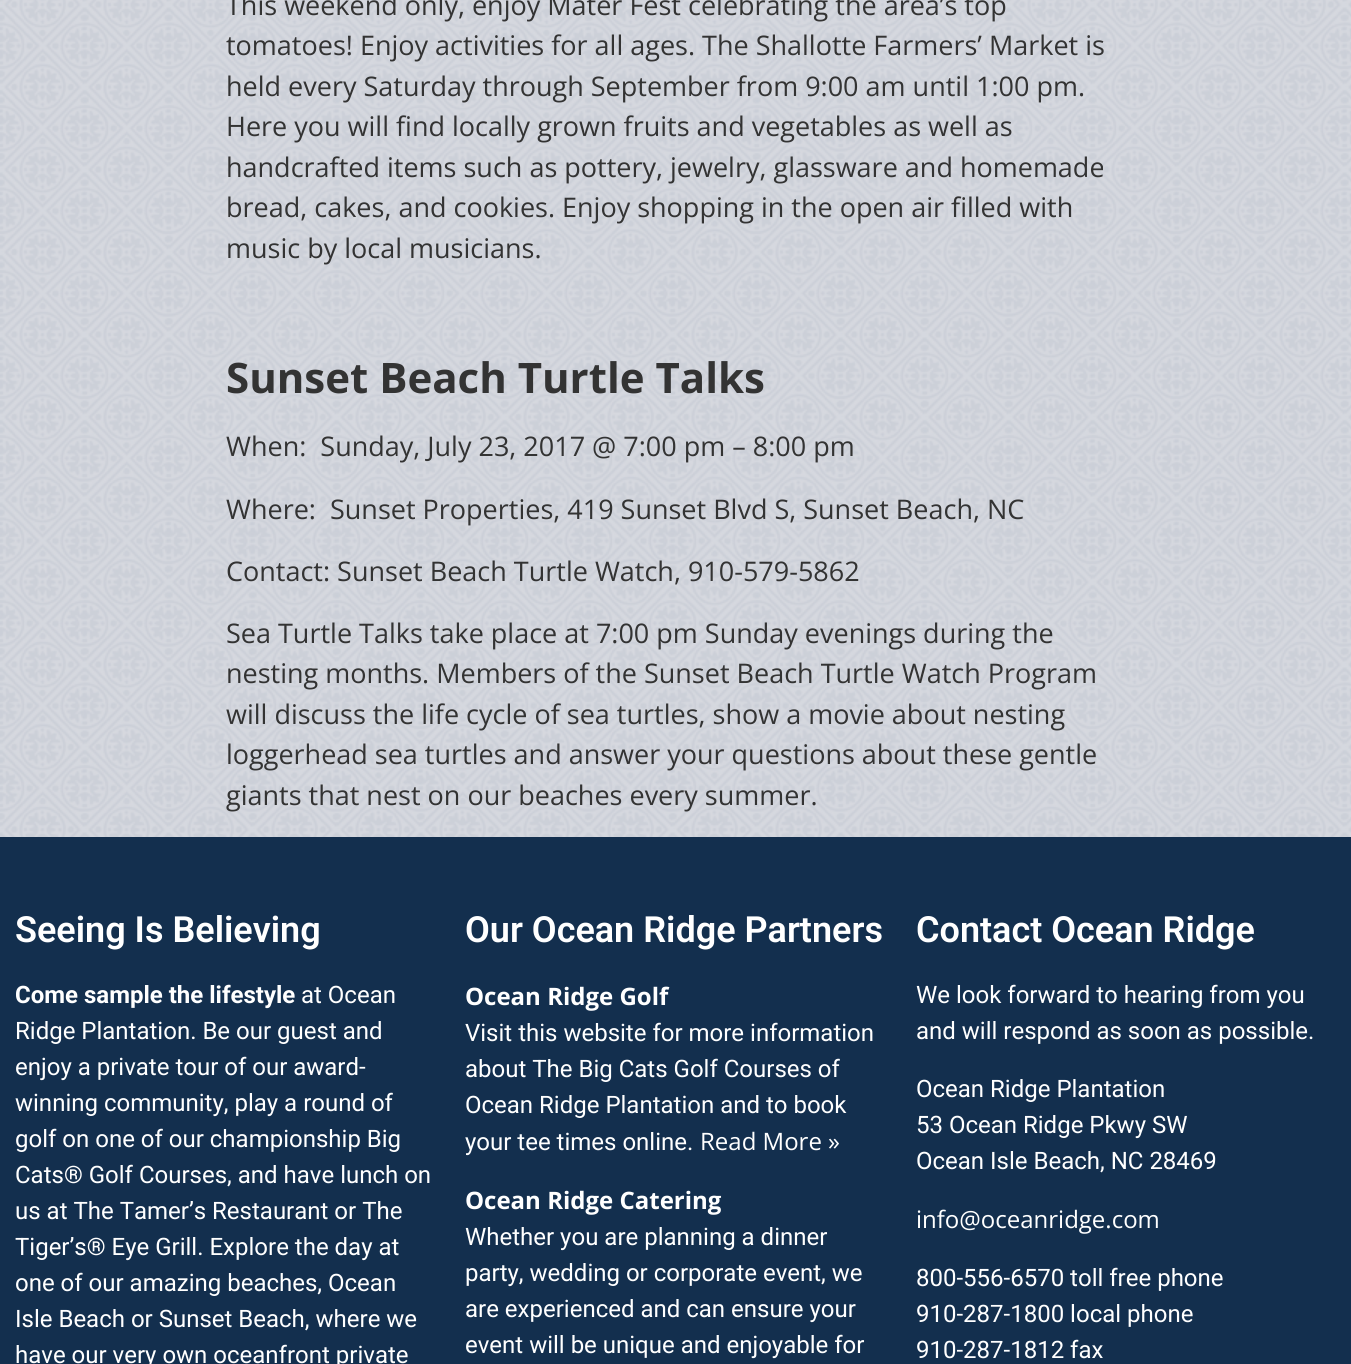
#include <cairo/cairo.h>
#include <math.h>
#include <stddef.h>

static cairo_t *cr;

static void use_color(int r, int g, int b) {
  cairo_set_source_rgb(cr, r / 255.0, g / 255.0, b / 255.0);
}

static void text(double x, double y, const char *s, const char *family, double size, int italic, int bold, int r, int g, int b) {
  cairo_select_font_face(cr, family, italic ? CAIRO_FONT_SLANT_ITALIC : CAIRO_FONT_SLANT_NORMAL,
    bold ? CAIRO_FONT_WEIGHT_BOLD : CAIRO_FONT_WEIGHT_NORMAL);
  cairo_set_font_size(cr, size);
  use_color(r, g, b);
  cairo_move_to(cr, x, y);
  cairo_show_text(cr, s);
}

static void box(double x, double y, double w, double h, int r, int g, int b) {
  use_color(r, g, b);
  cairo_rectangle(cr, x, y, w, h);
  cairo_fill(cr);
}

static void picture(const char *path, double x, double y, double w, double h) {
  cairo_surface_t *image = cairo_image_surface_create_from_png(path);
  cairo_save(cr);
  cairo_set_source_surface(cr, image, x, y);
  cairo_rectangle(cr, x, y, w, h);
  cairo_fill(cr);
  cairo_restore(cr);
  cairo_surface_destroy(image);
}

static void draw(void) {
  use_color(255, 255, 255);
  cairo_paint(cr);
  picture("img_01.png", 0, 0, 1351, 837);
  box(0, 837, 1351, 527, 19, 47, 78);
  text(226, 15, "This weekend only, enjoy Mater Fest celebrating the area’s top", "Open Sans", 27, 0, 0, 51, 51, 51);
  text(226, 55, "tomatoes! Enjoy activities for all ages. The Shallotte Farmers’ Market is", "Open Sans", 27, 0, 0, 51, 51, 51);
  text(226, 96, "held every Saturday through September from 9:00 am until 1:00 pm.", "Open Sans", 27, 0, 0, 51, 51, 51);
  text(226, 136, "Here you will find locally grown fruits and vegetables as well as", "Open Sans", 27, 0, 0, 51, 51, 51);
  text(226, 177, "handcrafted items such as pottery, jewelry, glassware and homemade", "Open Sans", 27, 0, 0, 51, 51, 51);
  text(226, 217, "bread, cakes, and cookies. Enjoy shopping in the open air filled with", "Open Sans", 27, 0, 0, 51, 51, 51);
  text(226, 258, "music by local musicians.", "Open Sans", 27, 0, 0, 51, 51, 51);
  text(226, 393, "Sunset Beach Turtle Talks", "Open Sans", 42, 0, 1, 51, 51, 51);
  text(226, 456, "When:  Sunday, July 23, 2017 @ 7:00 pm – 8:00 pm", "Open Sans", 27, 0, 0, 51, 51, 51);
  text(226, 519, "Where:  Sunset Properties, 419 Sunset Blvd S, Sunset Beach, NC", "Open Sans", 27, 0, 0, 51, 51, 51);
  text(226, 581, "Contact: Sunset Beach Turtle Watch, 910-579-5862", "Open Sans", 27, 0, 0, 51, 51, 51);
  text(226, 643, "Sea Turtle Talks take place at 7:00 pm Sunday evenings during the", "Open Sans", 27, 0, 0, 51, 51, 51);
  text(226, 683, "nesting months. Members of the Sunset Beach Turtle Watch Program", "Open Sans", 27, 0, 0, 51, 51, 51);
  text(226, 724, "will discuss the life cycle of sea turtles, show a movie about nesting", "Open Sans", 27, 0, 0, 51, 51, 51);
  text(226, 764, "loggerhead sea turtles and answer your questions about these gentle", "Open Sans", 27, 0, 0, 51, 51, 51);
  text(226, 805, "giants that nest on our beaches every summer.", "Open Sans", 27, 0, 0, 51, 51, 51);
  text(15, 942, "Seeing Is Believing", "Roboto SemiBold", 36, 0, 0, 255, 255, 255);
  text(15, 1003, "Come sample the lifestyle", "Roboto", 24, 0, 1, 255, 255, 255);
  text(301, 1003, "at Ocean", "Roboto", 24, 0, 0, 255, 255, 255);
  text(15, 1039, "Ridge Plantation. Be our guest and", "Roboto", 24, 0, 0, 255, 255, 255);
  text(15, 1075, "enjoy a private tour of our award-", "Roboto", 24, 0, 0, 255, 255, 255);
  text(15, 1111, "winning community, play a round of", "Roboto", 24, 0, 0, 255, 255, 255);
  text(15, 1147, "golf on one of our championship Big", "Roboto", 24, 0, 0, 255, 255, 255);
  text(15, 1183, "Cats® Golf Courses, and have lunch on", "Roboto", 24, 0, 0, 255, 255, 255);
  text(15, 1219, "us at The Tamer’s Restaurant or The", "Roboto", 24, 0, 0, 255, 255, 255);
  text(15, 1255, "Tiger’s® Eye Grill. Explore the day at", "Roboto", 24, 0, 0, 255, 255, 255);
  text(15, 1291, "one of our amazing beaches, Ocean", "Roboto", 24, 0, 0, 255, 255, 255);
  text(15, 1327, "Isle Beach or Sunset Beach, where we", "Roboto", 24, 0, 0, 255, 255, 255);
  text(15, 1363, "have our very own oceanfront private", "Roboto", 24, 0, 0, 255, 255, 255);
  text(465, 942, "Our Ocean Ridge Partners", "Roboto SemiBold", 36, 0, 0, 255, 255, 255);
  text(465, 1005, "Ocean Ridge Golf", "Open Sans", 24, 0, 1, 255, 255, 255);
  text(465, 1041, "Visit this website for more information", "Roboto", 24, 0, 0, 255, 255, 255);
  text(465, 1077, "about The Big Cats Golf Courses of", "Roboto", 24, 0, 0, 255, 255, 255);
  text(465, 1113, "Ocean Ridge Plantation and to book", "Roboto", 24, 0, 0, 255, 255, 255);
  text(465, 1150, "your tee times online.", "Roboto", 24, 0, 0, 255, 255, 255);
  text(700, 1150, "Read More »", "Open Sans", 24, 0, 0, 255, 255, 255);
  text(465, 1209, "Ocean Ridge Catering", "Open Sans", 24, 0, 1, 255, 255, 255);
  text(465, 1245, "Whether you are planning a dinner", "Roboto", 24, 0, 0, 255, 255, 255);
  text(465, 1281, "party, wedding or corporate event, we", "Roboto", 24, 0, 0, 255, 255, 255);
  text(465, 1317, "are experienced and can ensure your", "Roboto", 24, 0, 0, 255, 255, 255);
  text(465, 1353, "event will be unique and enjoyable for", "Roboto", 24, 0, 0, 255, 255, 255);
  text(916, 942, "Contact Ocean Ridge", "Roboto SemiBold", 36, 0, 0, 255, 255, 255);
  text(916, 1003, "We look forward to hearing from you", "Roboto", 24, 0, 0, 255, 255, 255);
  text(916, 1039, "and will respond as soon as possible.", "Roboto", 24, 0, 0, 255, 255, 255);
  text(916, 1097, "Ocean Ridge Plantation", "Roboto", 24, 0, 0, 255, 255, 255);
  text(916, 1133, "53 Ocean Ridge Pkwy SW", "Roboto", 24, 0, 0, 255, 255, 255);
  text(916, 1169, "Ocean Isle Beach, NC 28469", "Roboto", 24, 0, 0, 255, 255, 255);
  text(916, 1228, "info@oceanridge.com", "Open Sans", 24, 0, 0, 255, 255, 255);
  text(916, 1286, "800-556-6570 toll free phone", "Roboto", 24, 0, 0, 255, 255, 255);
  text(916, 1322, "910-287-1800 local phone", "Roboto", 24, 0, 0, 255, 255, 255);
  text(916, 1358, "910-287-1812 fax", "Roboto", 24, 0, 0, 255, 255, 255);
}

int main(void) {
  cairo_surface_t *surface = cairo_image_surface_create(CAIRO_FORMAT_RGB24, 1351, 1364);
  cr = cairo_create(surface);
  cairo_font_options_t *options = cairo_font_options_create();
  cairo_font_options_set_hint_metrics(options, CAIRO_HINT_METRICS_OFF);
  cairo_font_options_set_hint_style(options, CAIRO_HINT_STYLE_NONE);
  cairo_set_font_options(cr, options);
  cairo_set_miter_limit(cr, 4);
  draw();
  cairo_surface_write_to_png(surface, "out.png");
  cairo_font_options_destroy(options);
  cairo_destroy(cr);
  cairo_surface_destroy(surface);
  return 0;
}
